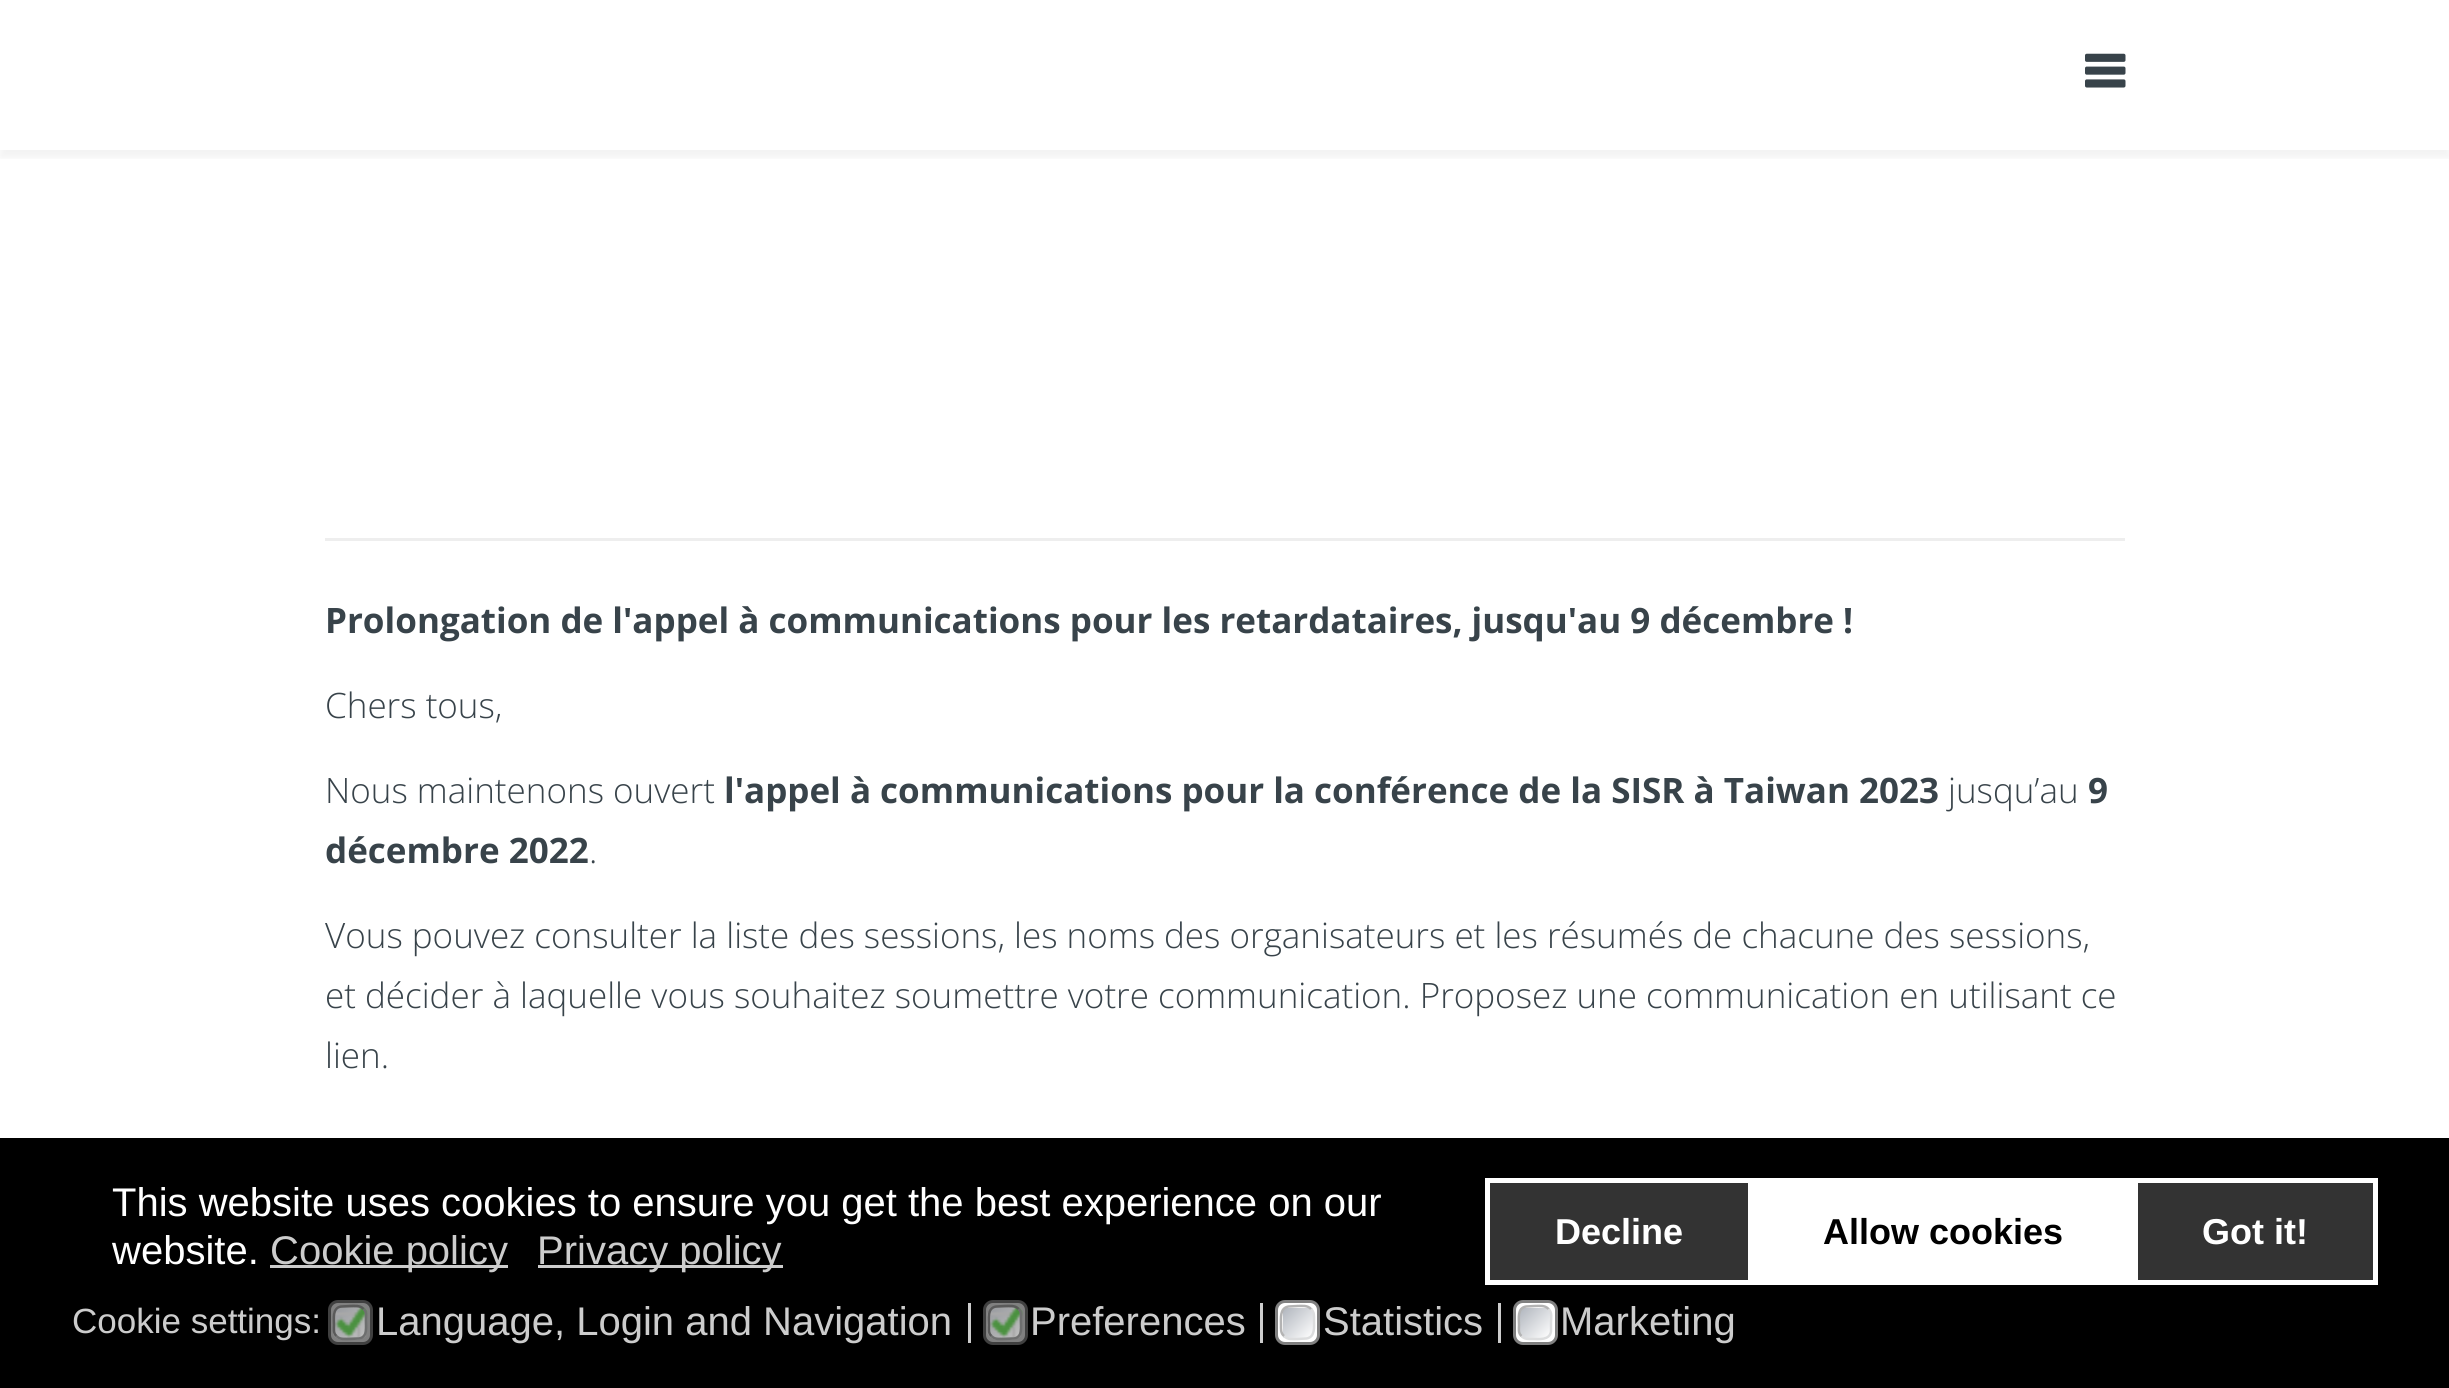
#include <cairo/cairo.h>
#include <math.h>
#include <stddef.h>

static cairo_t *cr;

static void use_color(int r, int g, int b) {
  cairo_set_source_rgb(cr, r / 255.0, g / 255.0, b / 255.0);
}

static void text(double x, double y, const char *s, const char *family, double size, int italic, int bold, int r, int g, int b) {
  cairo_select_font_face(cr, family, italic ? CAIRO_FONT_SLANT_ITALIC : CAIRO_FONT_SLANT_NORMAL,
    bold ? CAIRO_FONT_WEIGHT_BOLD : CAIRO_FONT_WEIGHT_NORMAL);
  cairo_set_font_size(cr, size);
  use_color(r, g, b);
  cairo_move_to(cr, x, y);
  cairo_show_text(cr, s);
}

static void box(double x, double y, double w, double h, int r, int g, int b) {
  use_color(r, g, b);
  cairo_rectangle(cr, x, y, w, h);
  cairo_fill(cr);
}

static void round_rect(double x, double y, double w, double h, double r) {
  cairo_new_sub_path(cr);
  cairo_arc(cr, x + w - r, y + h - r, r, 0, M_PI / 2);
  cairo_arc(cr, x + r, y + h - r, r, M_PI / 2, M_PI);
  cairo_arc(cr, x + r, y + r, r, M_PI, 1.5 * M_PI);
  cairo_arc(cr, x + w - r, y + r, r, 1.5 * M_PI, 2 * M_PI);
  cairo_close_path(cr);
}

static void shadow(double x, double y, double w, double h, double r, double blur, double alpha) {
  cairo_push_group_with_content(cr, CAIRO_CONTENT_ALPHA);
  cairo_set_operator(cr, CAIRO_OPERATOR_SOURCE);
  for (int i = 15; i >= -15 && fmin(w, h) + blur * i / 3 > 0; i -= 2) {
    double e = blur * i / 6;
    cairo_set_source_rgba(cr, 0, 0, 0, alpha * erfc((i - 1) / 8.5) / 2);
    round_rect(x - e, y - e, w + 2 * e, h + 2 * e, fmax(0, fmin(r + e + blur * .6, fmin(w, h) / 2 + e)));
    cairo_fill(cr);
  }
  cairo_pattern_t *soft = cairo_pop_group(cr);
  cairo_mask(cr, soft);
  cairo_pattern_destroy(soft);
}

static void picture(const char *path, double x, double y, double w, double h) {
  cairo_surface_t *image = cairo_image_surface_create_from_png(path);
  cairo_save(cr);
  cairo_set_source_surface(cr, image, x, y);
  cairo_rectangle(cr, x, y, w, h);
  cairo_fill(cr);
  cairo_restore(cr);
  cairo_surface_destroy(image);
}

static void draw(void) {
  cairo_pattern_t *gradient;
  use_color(255, 255, 255);
  cairo_paint(cr);
  cairo_save(cr);
  cairo_rectangle(cr, 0, 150, 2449, 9);
  cairo_clip(cr);
  use_color(0, 0, 0);
  shadow(0, 8, 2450, 150, 0, 4, 0.05);
  cairo_restore(cr);
  picture("img_01.png", 2085, 53, 41, 35);
  box(325, 538, 1800, 3, 238, 238, 238);
  box(0, 1138, 2449, 250, 0, 0, 0);
  box(270, 1265, 238, 3, 204, 204, 204);
  box(538, 1265, 245, 3, 204, 204, 204);
  use_color(51, 51, 51);
  cairo_rectangle(cr, 1487.5, 1180.5, 263, 102);
  cairo_fill_preserve(cr);
  use_color(255, 255, 255);
  cairo_set_line_width(cr, 5);
  cairo_stroke(cr);
  box(1753, 1178, 380, 107, 255, 255, 255);
  use_color(51, 51, 51);
  cairo_rectangle(cr, 2135.5, 1180.5, 240, 102);
  cairo_fill_preserve(cr);
  use_color(255, 255, 255);
  cairo_stroke(cr);
  use_color(128, 128, 128);
  round_rect(329.5, 1301.5, 42, 42, 8.5);
  cairo_fill_preserve(cr);
  use_color(64, 64, 64);
  cairo_set_line_width(cr, 3);
  cairo_stroke(cr);
  picture("img_02.png", 333, 1305, 35, 35);
  cairo_new_path(cr);
  cairo_move_to(cr, 363.5, 1309);
  cairo_curve_to(cr, 367, 1312, 366, 1316, 366, 1320);
  cairo_curve_to(cr, 366, 1326.5, 368, 1337, 359, 1338.5);
  cairo_line_to(cr, 350, 1339);
  cairo_curve_to(cr, 345.5, 1339, 340, 1340, 336.5, 1336);
  use_color(110, 111, 111);
  cairo_set_line_width(cr, 2.5);
  cairo_stroke(cr);
  cairo_new_path(cr);
  cairo_move_to(cr, 336.5, 1336);
  cairo_curve_to(cr, 333, 1333, 334, 1329, 334, 1325);
  cairo_curve_to(cr, 334, 1318.5, 332, 1308, 341, 1306.5);
  cairo_line_to(cr, 350, 1306);
  cairo_curve_to(cr, 354.5, 1306, 360, 1305, 363.5, 1309);
  use_color(90, 90, 90);
  cairo_stroke(cr);
  box(968, 1303, 3, 40, 204, 204, 204);
  use_color(128, 128, 128);
  round_rect(984.5, 1301.5, 42, 42, 8.5);
  cairo_fill_preserve(cr);
  use_color(64, 64, 64);
  cairo_set_line_width(cr, 3);
  cairo_stroke(cr);
  picture("img_03.png", 987, 1305, 36, 35);
  cairo_new_path(cr);
  cairo_move_to(cr, 1018.5, 1309);
  cairo_curve_to(cr, 1022, 1312, 1021, 1316, 1021, 1320);
  cairo_curve_to(cr, 1021, 1326.5, 1023, 1337, 1014, 1338.5);
  cairo_line_to(cr, 1005, 1339);
  cairo_curve_to(cr, 1000.5, 1339, 995, 1340, 991.5, 1336);
  use_color(110, 111, 111);
  cairo_set_line_width(cr, 2.5);
  cairo_stroke(cr);
  cairo_new_path(cr);
  cairo_move_to(cr, 991.5, 1336);
  cairo_curve_to(cr, 988, 1333, 989, 1329, 989, 1325);
  cairo_curve_to(cr, 989, 1318.5, 987, 1308, 996, 1306.5);
  cairo_line_to(cr, 1005, 1306);
  cairo_curve_to(cr, 1009.5, 1306, 1015, 1305, 1018.5, 1309);
  use_color(90, 90, 90);
  cairo_stroke(cr);
  box(1260, 1303, 3, 40, 204, 204, 204);
  use_color(255, 255, 255);
  round_rect(1276.5, 1301.5, 42, 42, 8.5);
  cairo_fill_preserve(cr);
  use_color(128, 128, 128);
  cairo_set_line_width(cr, 3);
  cairo_stroke(cr);
  cairo_save(cr);
  round_rect(1280, 1305, 35, 35, 10);
  cairo_clip(cr);
  gradient = cairo_pattern_create_linear(1283, 1308, 1313, 1338);
  cairo_pattern_add_color_stop_rgba(gradient, 0, 0.694, 0.714, 0.745, 1);
  cairo_pattern_add_color_stop_rgba(gradient, 1, 1, 1, 1, 1);
  cairo_set_source(cr, gradient);
  cairo_pattern_destroy(gradient);
  cairo_rectangle(cr, 1283, 1308, 30, 30);
  cairo_fill(cr);
  cairo_restore(cr);
  cairo_new_path(cr);
  cairo_move_to(cr, 1311, 1309);
  cairo_curve_to(cr, 1314.5, 1312, 1314, 1316, 1314, 1320);
  cairo_curve_to(cr, 1314, 1326.5, 1315.5, 1337, 1306.5, 1338.5);
  cairo_line_to(cr, 1297.5, 1339);
  cairo_curve_to(cr, 1293, 1339, 1287.5, 1340, 1284, 1336);
  use_color(220, 221, 222);
  cairo_set_line_width(cr, 2.5);
  cairo_stroke(cr);
  cairo_new_path(cr);
  cairo_move_to(cr, 1284, 1336);
  cairo_curve_to(cr, 1280.5, 1333, 1281, 1329, 1281, 1325);
  cairo_curve_to(cr, 1281, 1318.5, 1279.5, 1308, 1288.5, 1306.5);
  cairo_line_to(cr, 1297.5, 1306);
  cairo_curve_to(cr, 1302, 1306, 1307.5, 1305, 1311, 1309);
  use_color(179, 179, 179);
  cairo_stroke(cr);
  box(1498, 1303, 3, 40, 204, 204, 204);
  use_color(255, 255, 255);
  round_rect(1514.5, 1301.5, 42, 42, 8.5);
  cairo_fill_preserve(cr);
  use_color(128, 128, 128);
  cairo_set_line_width(cr, 3);
  cairo_stroke(cr);
  cairo_save(cr);
  round_rect(1518, 1305, 35, 35, 10);
  cairo_clip(cr);
  gradient = cairo_pattern_create_linear(1520, 1308, 1550, 1338);
  cairo_pattern_add_color_stop_rgba(gradient, 0, 0.694, 0.714, 0.745, 1);
  cairo_pattern_add_color_stop_rgba(gradient, 1, 1, 1, 1, 1);
  cairo_set_source(cr, gradient);
  cairo_pattern_destroy(gradient);
  cairo_rectangle(cr, 1520, 1308, 30, 30);
  cairo_fill(cr);
  cairo_restore(cr);
  cairo_new_path(cr);
  cairo_move_to(cr, 1548.5, 1309);
  cairo_curve_to(cr, 1552.5, 1312.5, 1551, 1318, 1551, 1322.5);
  cairo_line_to(cr, 1551, 1331.5);
  cairo_curve_to(cr, 1549.5, 1340.5, 1539, 1339, 1532.5, 1339);
  cairo_curve_to(cr, 1528.5, 1339, 1524.5, 1339.5, 1521.5, 1336);
  use_color(220, 221, 222);
  cairo_set_line_width(cr, 2.5);
  cairo_stroke(cr);
  cairo_new_path(cr);
  cairo_move_to(cr, 1521.5, 1336);
  cairo_curve_to(cr, 1518, 1333, 1519, 1329, 1519, 1325);
  cairo_curve_to(cr, 1519, 1318.5, 1517, 1308, 1526, 1306.5);
  cairo_line_to(cr, 1535, 1306);
  cairo_curve_to(cr, 1539.5, 1306, 1545, 1305, 1548.5, 1309);
  use_color(179, 179, 179);
  cairo_stroke(cr);
  text(325, 633, "Prolongation de l'appel à communications pour les retardataires, jusqu'au 9 décembre !", "Open Sans", 35, 0, 1, 56, 67, 74);
  text(325, 718, "Chers tous,", "Open Sans Light", 35, 0, 0, 56, 67, 74);
  text(325, 803, "Nous maintenons ouvert", "Open Sans Light", 35, 0, 0, 56, 67, 74);
  text(724, 803, "l'appel à communications pour la conférence de la SISR à Taiwan 2023", "Open Sans", 35, 0, 1, 56, 67, 74);
  text(1948, 803, "jusqu’au", "Open Sans Light", 35, 0, 0, 56, 67, 74);
  text(2088, 803, "9", "Open Sans", 35, 0, 1, 56, 67, 74);
  text(325, 863, "décembre 2022", "Open Sans", 35, 0, 1, 56, 67, 74);
  text(589, 863, ".", "Open Sans Light", 35, 0, 0, 56, 67, 74);
  text(325, 948, "Vous pouvez consulter la liste des sessions, les noms des organisateurs et les résumés de chacune des sessions,", "Open Sans Light", 35, 0, 0, 56, 67, 74);
  text(325, 1008, "et décider à laquelle vous souhaitez soumettre votre communication. Proposez une communication en utilisant ce", "Open Sans Light", 35, 0, 0, 56, 67, 74);
  text(325, 1068, "lien.", "Open Sans Light", 35, 0, 0, 56, 67, 74);
  text(112, 1216, "This website uses cookies to ensure you get the best experience on our", "Liberation Sans", 40, 0, 0, 255, 255, 255);
  text(112, 1264, "website.", "Liberation Sans", 40, 0, 0, 255, 255, 255);
  text(270, 1264, "Cookie policy", "Liberation Sans", 40, 0, 0, 204, 204, 204);
  text(537, 1264, "Privacy policy", "Liberation Sans", 40, 0, 0, 204, 204, 204);
  text(1555, 1244, "Decline", "Liberation Sans", 36, 0, 1, 255, 255, 255);
  text(1823, 1244, "Allow cookies", "Liberation Sans", 36, 0, 1, 0, 0, 0);
  text(2202, 1244, "Got it!", "Liberation Sans", 36, 0, 1, 255, 255, 255);
  text(72, 1333, "Cookie settings:", "Liberation Sans", 35, 0, 0, 204, 204, 204);
  text(376, 1335, "Language, Login and Navigation", "Liberation Sans", 40, 0, 0, 204, 204, 204);
  text(1030, 1335, "Preferences", "Liberation Sans", 40, 0, 0, 204, 204, 204);
  text(1323, 1335, "Statistics", "Liberation Sans", 40, 0, 0, 204, 204, 204);
  text(1560, 1335, "Marketing", "Liberation Sans", 40, 0, 0, 204, 204, 204);
}

int main(void) {
  cairo_surface_t *surface = cairo_image_surface_create(CAIRO_FORMAT_RGB24, 2449, 1388);
  cr = cairo_create(surface);
  cairo_font_options_t *options = cairo_font_options_create();
  cairo_font_options_set_hint_metrics(options, CAIRO_HINT_METRICS_OFF);
  cairo_font_options_set_hint_style(options, CAIRO_HINT_STYLE_NONE);
  cairo_set_font_options(cr, options);
  cairo_set_miter_limit(cr, 4);
  draw();
  cairo_surface_write_to_png(surface, "out.png");
  cairo_font_options_destroy(options);
  cairo_destroy(cr);
  cairo_surface_destroy(surface);
  return 0;
}
